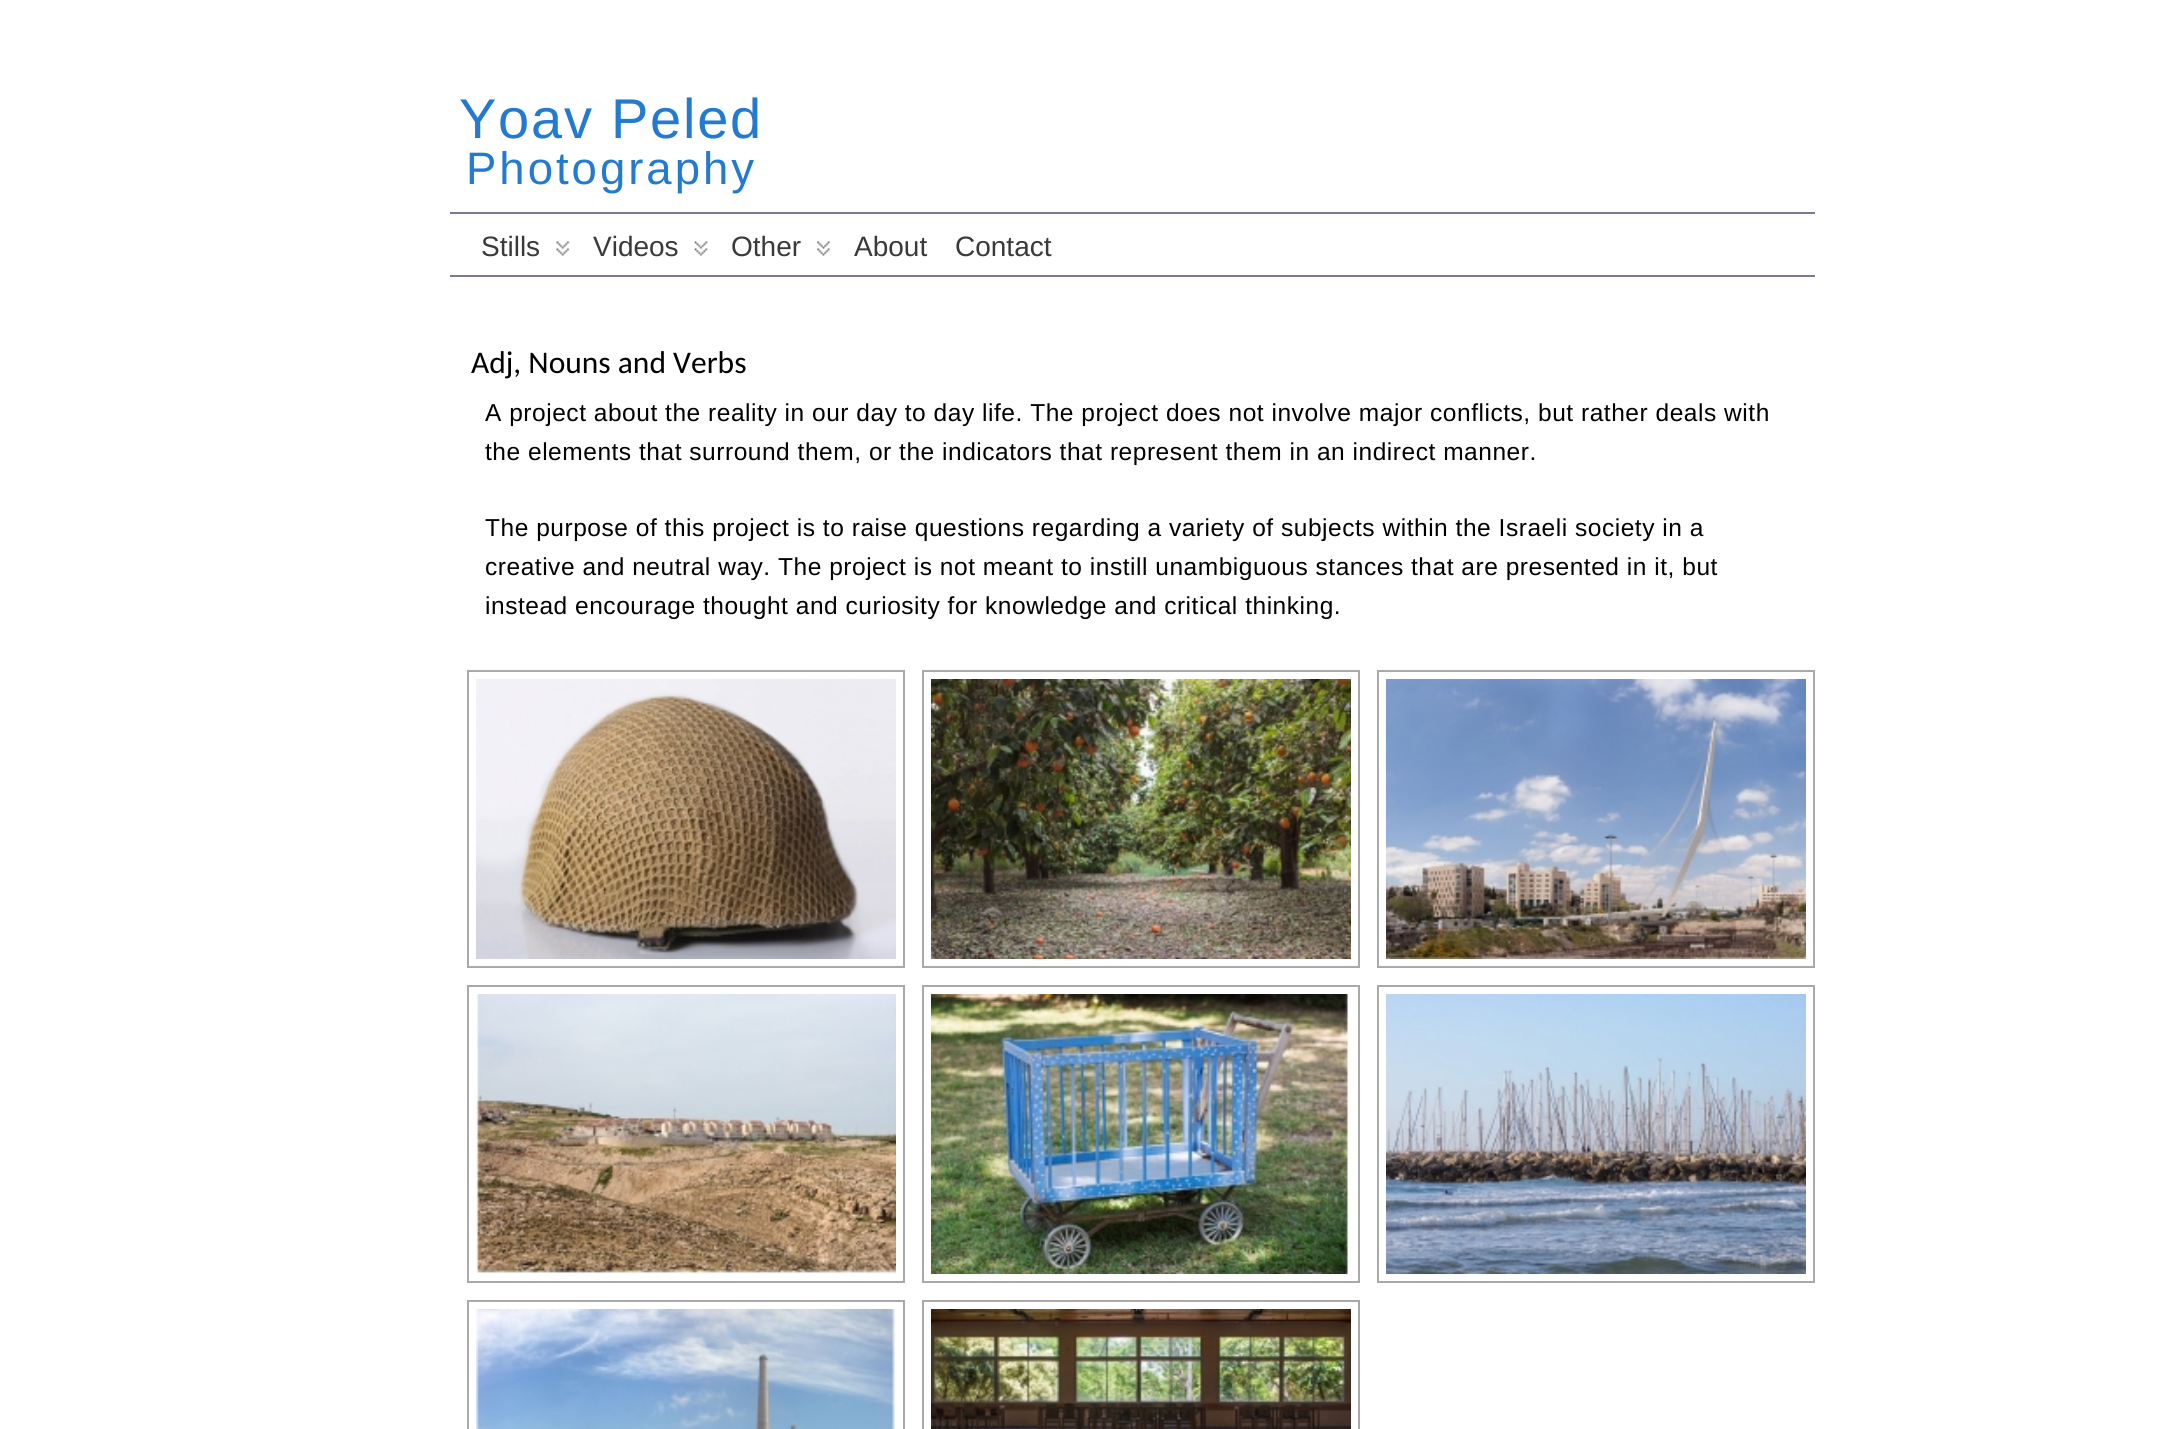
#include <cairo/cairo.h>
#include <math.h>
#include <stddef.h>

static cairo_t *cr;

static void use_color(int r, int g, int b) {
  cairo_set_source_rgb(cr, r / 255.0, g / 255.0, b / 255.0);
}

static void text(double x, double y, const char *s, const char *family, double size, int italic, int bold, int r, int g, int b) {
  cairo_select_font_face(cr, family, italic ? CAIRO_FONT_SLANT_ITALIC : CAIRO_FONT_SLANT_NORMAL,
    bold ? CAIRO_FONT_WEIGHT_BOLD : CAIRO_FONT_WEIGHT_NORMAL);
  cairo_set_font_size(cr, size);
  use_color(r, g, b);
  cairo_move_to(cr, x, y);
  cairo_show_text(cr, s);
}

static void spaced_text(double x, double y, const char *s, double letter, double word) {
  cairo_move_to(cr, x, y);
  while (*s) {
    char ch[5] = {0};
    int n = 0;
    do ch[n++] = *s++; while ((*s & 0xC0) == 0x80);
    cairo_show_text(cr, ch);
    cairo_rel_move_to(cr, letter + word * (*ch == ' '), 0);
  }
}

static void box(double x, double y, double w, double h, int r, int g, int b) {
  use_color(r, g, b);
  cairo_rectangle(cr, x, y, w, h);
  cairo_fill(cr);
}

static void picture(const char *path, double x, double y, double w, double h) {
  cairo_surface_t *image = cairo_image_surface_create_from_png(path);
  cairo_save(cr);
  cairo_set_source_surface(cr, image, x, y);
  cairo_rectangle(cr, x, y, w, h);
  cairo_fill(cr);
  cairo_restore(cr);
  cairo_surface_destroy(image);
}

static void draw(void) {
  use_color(255, 255, 255);
  cairo_paint(cr);
  box(450, 212, 1365, 2, 122, 123, 147);
  box(450, 275, 1365, 2, 122, 123, 147);
  picture("img_01.png", 556, 241, 14, 15);
  picture("img_02.png", 694, 241, 14, 15);
  picture("img_03.png", 817, 241, 13, 15);
  cairo_rectangle(cr, 468, 671, 436, 296);
  use_color(169, 169, 169);
  cairo_stroke(cr);
  picture("img_04.png", 476, 679, 420, 280);
  cairo_rectangle(cr, 923, 671, 436, 296);
  cairo_stroke(cr);
  picture("img_05.png", 931, 679, 420, 280);
  cairo_rectangle(cr, 1378, 671, 436, 296);
  cairo_stroke(cr);
  picture("img_06.png", 1386, 679, 420, 280);
  cairo_rectangle(cr, 468, 986, 436, 296);
  cairo_stroke(cr);
  picture("img_07.png", 476, 994, 420, 280);
  cairo_rectangle(cr, 923, 986, 436, 296);
  cairo_stroke(cr);
  picture("img_08.png", 931, 994, 419, 280);
  cairo_rectangle(cr, 1378, 986, 436, 296);
  cairo_stroke(cr);
  picture("img_09.png", 1386, 994, 420, 280);
  cairo_rectangle(cr, 468, 1301, 436, 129);
  cairo_stroke(cr);
  picture("img_10.png", 476, 1309, 420, 120);
  cairo_rectangle(cr, 923, 1301, 436, 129);
  cairo_stroke(cr);
  picture("img_11.png", 931, 1309, 420, 120);
  cairo_select_font_face(cr, "Arimo", CAIRO_FONT_SLANT_NORMAL, CAIRO_FONT_WEIGHT_NORMAL);
  cairo_set_font_size(cr, 56);
  use_color(34, 122, 209);
  spaced_text(459, 138, "Yoav Peled", 1.75, 0);
  cairo_set_font_size(cr, 45.5);
  spaced_text(466, 184, "Photography", 3, 0);
  text(481, 256, "Stills", "Arimo", 28, 0, 0, 58, 58, 58);
  text(593, 256, "Videos", "Arimo", 28, 0, 0, 58, 58, 58);
  text(731, 256, "Other", "Arimo", 28, 0, 0, 58, 58, 58);
  text(854, 256, "About", "Arimo", 28, 0, 0, 58, 58, 58);
  text(955, 256, "Contact", "Arimo", 28, 0, 0, 58, 58, 58);
  text(471, 373, "Adj, Nouns and Verbs", "Carlito", 31.5, 0, 0, 0, 0, 0);
  cairo_select_font_face(cr, "Arimo", CAIRO_FONT_SLANT_NORMAL, CAIRO_FONT_WEIGHT_NORMAL);
  cairo_set_font_size(cr, 24.5);
  spaced_text(485, 421, "A project about the reality in our day to day life. The project does not involve major conflicts, but rather deals with", 0.53, 0);
  spaced_text(485, 460, "the elements that surround them, or the indicators that represent them in an indirect manner.", 0.53, 0);
  spaced_text(485, 536, "The purpose of this project is to raise questions regarding a variety of subjects within the Israeli society in a", 0.53, 0);
  spaced_text(485, 575, "creative and neutral way. The project is not meant to instill unambiguous stances that are presented in it, but", 0.53, 0);
  spaced_text(485, 614, "instead encourage thought and curiosity for knowledge and critical thinking.", 0.53, 0);
}

int main(void) {
  cairo_surface_t *surface = cairo_image_surface_create(CAIRO_FORMAT_RGB24, 2176, 1429);
  cr = cairo_create(surface);
  cairo_font_options_t *options = cairo_font_options_create();
  cairo_font_options_set_hint_metrics(options, CAIRO_HINT_METRICS_OFF);
  cairo_font_options_set_hint_style(options, CAIRO_HINT_STYLE_NONE);
  cairo_set_font_options(cr, options);
  cairo_set_miter_limit(cr, 4);
  draw();
  cairo_surface_write_to_png(surface, "out.png");
  cairo_font_options_destroy(options);
  cairo_destroy(cr);
  cairo_surface_destroy(surface);
  return 0;
}
